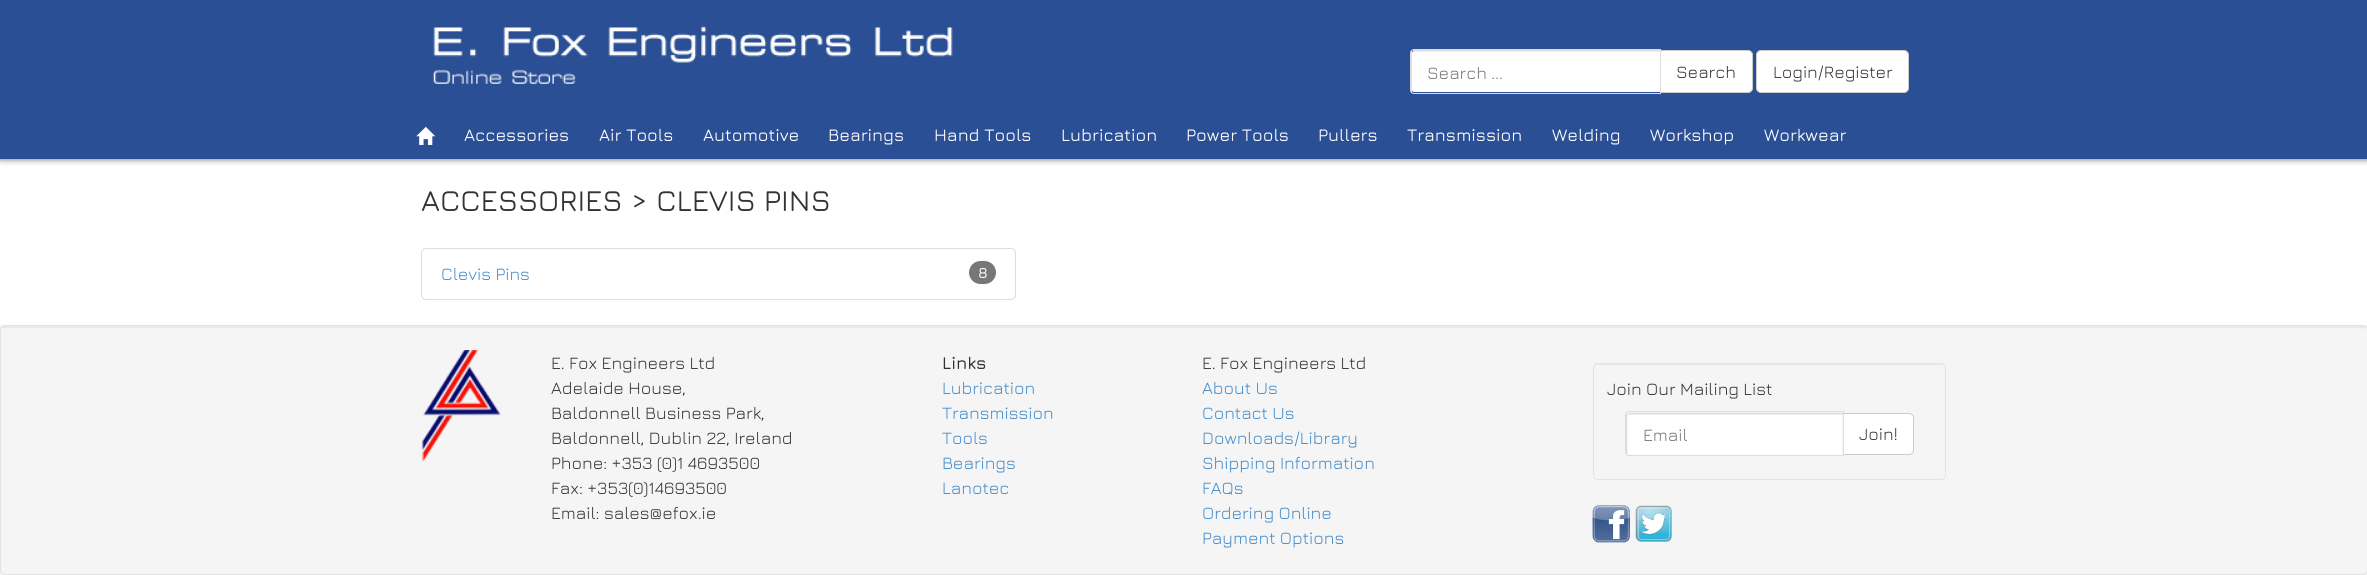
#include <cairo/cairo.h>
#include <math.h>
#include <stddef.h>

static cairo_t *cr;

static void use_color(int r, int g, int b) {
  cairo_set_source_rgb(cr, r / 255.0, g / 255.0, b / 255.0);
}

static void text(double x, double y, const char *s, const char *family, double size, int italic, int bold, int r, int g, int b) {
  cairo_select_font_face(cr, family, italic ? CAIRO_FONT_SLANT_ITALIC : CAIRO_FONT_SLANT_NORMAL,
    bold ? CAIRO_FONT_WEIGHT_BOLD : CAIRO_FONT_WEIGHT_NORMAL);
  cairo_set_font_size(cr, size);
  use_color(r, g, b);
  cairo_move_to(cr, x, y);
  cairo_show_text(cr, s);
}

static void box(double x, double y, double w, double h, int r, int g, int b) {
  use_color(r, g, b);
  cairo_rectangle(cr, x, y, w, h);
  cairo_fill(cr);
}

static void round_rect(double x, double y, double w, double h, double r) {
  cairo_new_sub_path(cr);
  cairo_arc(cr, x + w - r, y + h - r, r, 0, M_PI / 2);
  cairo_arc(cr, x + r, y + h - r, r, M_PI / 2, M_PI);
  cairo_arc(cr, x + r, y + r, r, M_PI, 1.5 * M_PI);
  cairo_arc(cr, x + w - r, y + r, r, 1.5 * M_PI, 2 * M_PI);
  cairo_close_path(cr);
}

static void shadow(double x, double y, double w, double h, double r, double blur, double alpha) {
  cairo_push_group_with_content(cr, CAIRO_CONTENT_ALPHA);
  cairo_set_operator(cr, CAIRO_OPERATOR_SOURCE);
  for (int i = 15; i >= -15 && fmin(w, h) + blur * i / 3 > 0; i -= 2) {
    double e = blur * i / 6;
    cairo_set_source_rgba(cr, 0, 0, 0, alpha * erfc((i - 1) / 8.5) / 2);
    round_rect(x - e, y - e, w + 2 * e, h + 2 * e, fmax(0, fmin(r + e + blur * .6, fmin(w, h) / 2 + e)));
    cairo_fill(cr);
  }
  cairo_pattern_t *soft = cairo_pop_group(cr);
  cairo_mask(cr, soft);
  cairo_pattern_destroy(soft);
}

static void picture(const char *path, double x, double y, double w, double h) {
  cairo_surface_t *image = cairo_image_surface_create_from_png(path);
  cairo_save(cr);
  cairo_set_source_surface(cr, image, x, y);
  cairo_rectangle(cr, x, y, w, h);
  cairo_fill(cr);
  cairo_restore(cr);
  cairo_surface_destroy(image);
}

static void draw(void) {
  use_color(255, 255, 255);
  cairo_paint(cr);
  use_color(136, 136, 136);
  shadow(0, 1, 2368, 159, 0, 3, 1);
  box(0, 0, 2367, 159, 43, 79, 148);
  picture("img_01.png", 433, 26, 520, 58);
  use_color(255, 255, 255);
  cairo_new_path(cr);
  cairo_move_to(cr, 1414, 51);
  cairo_line_to(cr, 1660, 51);
  cairo_line_to(cr, 1660, 92);
  cairo_line_to(cr, 1414, 92);
  cairo_curve_to(cr, 1413, 92, 1412, 91, 1412, 90);
  cairo_line_to(cr, 1412, 52);
  cairo_curve_to(cr, 1412, 52, 1413, 51, 1414, 51);
  cairo_close_path(cr);
  cairo_fill(cr);
  cairo_set_source_rgba(cr, 0, 0, 0, 0.07);
  cairo_new_path(cr);
  cairo_move_to(cr, 1414, 52);
  cairo_line_to(cr, 1660, 52);
  cairo_line_to(cr, 1660, 51);
  cairo_line_to(cr, 1414, 51);
  cairo_curve_to(cr, 1413, 51, 1412, 52, 1412, 53);
  cairo_close_path(cr);
  cairo_fill(cr);
  use_color(255, 255, 255);
  cairo_new_path(cr);
  cairo_move_to(cr, 1660.5, 50.5);
  cairo_line_to(cr, 1748, 50.5);
  cairo_curve_to(cr, 1750.5, 50.5, 1752.5, 52.5, 1752.5, 55);
  cairo_line_to(cr, 1752.5, 88);
  cairo_curve_to(cr, 1752.5, 90.5, 1750.5, 92.5, 1748, 92.5);
  cairo_line_to(cr, 1660.5, 92.5);
  cairo_close_path(cr);
  cairo_fill_preserve(cr);
  use_color(204, 204, 204);
  cairo_set_line_width(cr, 1);
  cairo_stroke(cr);
  cairo_new_path(cr);
  cairo_move_to(cr, 1414, 49.5);
  cairo_line_to(cr, 1660.5, 49.5);
  cairo_line_to(cr, 1660.5, 93.5);
  cairo_line_to(cr, 1414, 93.5);
  cairo_curve_to(cr, 1412, 93.5, 1410.5, 92, 1410.5, 90);
  cairo_line_to(cr, 1410.5, 53);
  cairo_curve_to(cr, 1410.5, 51, 1412, 49.5, 1414, 49.5);
  cairo_close_path(cr);
  use_color(221, 221, 221);
  cairo_stroke(cr);
  box(1413, 50, 248, 1, 221, 221, 221);
  box(1411, 51, 1, 42, 221, 221, 221);
  use_color(255, 255, 255);
  round_rect(1756.5, 50.5, 152, 42, 4.5);
  cairo_fill_preserve(cr);
  use_color(204, 204, 204);
  cairo_stroke(cr);
  picture("img_02.png", 416, 126, 20, 19);
  round_rect(421.5, 248.5, 594, 51, 4.5);
  use_color(221, 221, 221);
  cairo_stroke(cr);
  use_color(119, 119, 119);
  round_rect(969, 261, 27, 23, 11.5);
  cairo_fill(cr);
  box(0, 325, 2367, 250, 245, 245, 245);
  use_color(233, 233, 233);
  cairo_new_path(cr);
  cairo_move_to(cr, 5, 328);
  cairo_line_to(cr, 2362, 328);
  cairo_curve_to(cr, 2365, 328, 2366, 329, 2366, 331);
  cairo_curve_to(cr, 2366, 328, 2365, 326, 2362, 326);
  cairo_line_to(cr, 5, 326);
  cairo_curve_to(cr, 2, 326, 1, 328, 1, 331);
  cairo_curve_to(cr, 1, 329, 3, 328, 5, 328);
  cairo_close_path(cr);
  cairo_fill(cr);
  round_rect(0.5, 325.5, 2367, 249, 4.5);
  use_color(227, 227, 227);
  cairo_stroke(cr);
  picture("img_03.png", 421, 350, 80, 112);
  use_color(233, 233, 233);
  cairo_new_path(cr);
  cairo_move_to(cr, 1598, 365);
  cairo_line_to(cr, 1941, 365);
  cairo_curve_to(cr, 1943, 365, 1945, 367, 1945, 369);
  cairo_line_to(cr, 1944, 366);
  cairo_line_to(cr, 1942, 364);
  cairo_line_to(cr, 1598, 364);
  cairo_curve_to(cr, 1595, 364, 1594, 366, 1594, 369);
  cairo_curve_to(cr, 1594, 367, 1595, 365, 1598, 365);
  cairo_close_path(cr);
  cairo_fill(cr);
  round_rect(1593.5, 363.5, 352, 116, 4.5);
  use_color(227, 227, 227);
  cairo_stroke(cr);
  use_color(255, 255, 255);
  cairo_new_path(cr);
  cairo_move_to(cr, 1629, 414);
  cairo_line_to(cr, 1842, 414);
  cairo_line_to(cr, 1842, 455);
  cairo_line_to(cr, 1629, 455);
  cairo_curve_to(cr, 1628, 455, 1628, 454, 1628, 452);
  cairo_line_to(cr, 1628, 415);
  cairo_curve_to(cr, 1628, 414, 1628, 414, 1629, 414);
  cairo_close_path(cr);
  cairo_fill(cr);
  use_color(236, 236, 236);
  cairo_new_path(cr);
  cairo_move_to(cr, 1629, 415);
  cairo_line_to(cr, 1842, 415);
  cairo_line_to(cr, 1842, 455);
  cairo_line_to(cr, 1842, 414);
  cairo_line_to(cr, 1629, 414);
  cairo_curve_to(cr, 1628, 414, 1628, 414, 1628, 415);
  cairo_line_to(cr, 1628, 452);
  cairo_line_to(cr, 1628, 455);
  cairo_line_to(cr, 1628, 416);
  cairo_close_path(cr);
  cairo_fill(cr);
  use_color(255, 255, 255);
  cairo_new_path(cr);
  cairo_move_to(cr, 1843.5, 413.5);
  cairo_line_to(cr, 1909, 413.5);
  cairo_curve_to(cr, 1911.5, 413.5, 1913.5, 415.5, 1913.5, 418);
  cairo_line_to(cr, 1913.5, 450);
  cairo_curve_to(cr, 1913.5, 452.5, 1911.5, 454.5, 1909, 454.5);
  cairo_line_to(cr, 1843.5, 454.5);
  cairo_close_path(cr);
  cairo_fill_preserve(cr);
  use_color(204, 204, 204);
  cairo_stroke(cr);
  cairo_new_path(cr);
  cairo_move_to(cr, 1629, 411.5);
  cairo_line_to(cr, 1843.5, 411.5);
  cairo_line_to(cr, 1843.5, 455.5);
  cairo_line_to(cr, 1629, 455.5);
  cairo_curve_to(cr, 1627, 455.5, 1625.5, 454, 1625.5, 452);
  cairo_line_to(cr, 1625.5, 415);
  cairo_curve_to(cr, 1625.5, 413, 1627, 411.5, 1629, 411.5);
  cairo_close_path(cr);
  use_color(221, 221, 221);
  cairo_stroke(cr);
  box(1628, 413, 216, 1, 221, 221, 221);
  box(1626, 414, 1, 41, 221, 221, 221);
  picture("img_04.png", 1592, 505, 38, 38);
  picture("img_05.png", 1635, 505, 37, 37);
  text(1427, 79, "Search ...", "Jura", 17.5, 0, 0, 119, 119, 119);
  text(1676, 78, "Search", "Jura", 17.5, 0, 0, 51, 51, 51);
  text(1773, 78, "Login/Register", "Jura", 17.5, 0, 0, 51, 51, 51);
  text(464, 141, "Accessories", "Jura Medium", 17.5, 0, 0, 255, 255, 255);
  text(599, 141, "Air Tools", "Jura Medium", 17.5, 0, 0, 255, 255, 255);
  text(703, 141, "Automotive", "Jura Medium", 17.5, 0, 0, 255, 255, 255);
  text(828, 141, "Bearings", "Jura Medium", 17.5, 0, 0, 255, 255, 255);
  text(934, 141, "Hand Tools", "Jura Medium", 17.5, 0, 0, 255, 255, 255);
  text(1061, 141, "Lubrication", "Jura Medium", 17.5, 0, 0, 255, 255, 255);
  text(1186, 141, "Power Tools", "Jura Medium", 17.5, 0, 0, 255, 255, 255);
  text(1318, 141, "Pullers", "Jura Medium", 17.5, 0, 0, 255, 255, 255);
  text(1407, 141, "Transmission", "Jura Medium", 17.5, 0, 0, 255, 255, 255);
  text(1552, 141, "Welding", "Jura Medium", 17.5, 0, 0, 255, 255, 255);
  text(1650, 141, "Workshop", "Jura Medium", 17.5, 0, 0, 255, 255, 255);
  text(1764, 141, "Workwear", "Jura Medium", 17.5, 0, 0, 255, 255, 255);
  text(421, 211, "ACCESSORIES > CLEVIS PINS", "Jura Medium", 30, 0, 0, 51, 51, 51);
  text(441, 280, "Clevis Pins", "Jura", 17.5, 0, 0, 66, 139, 202);
  text(978, 278, "8", "Jura SemiBold", 15, 0, 0, 255, 255, 255);
  text(551, 369, "E. Fox Engineers Ltd", "Jura", 17.5, 0, 0, 51, 51, 51);
  text(551, 394, "Adelaide House,", "Jura", 17.5, 0, 0, 51, 51, 51);
  text(551, 419, "Baldonnell Business Park,", "Jura", 17.5, 0, 0, 51, 51, 51);
  text(551, 444, "Baldonnell, Dublin 22, Ireland", "Jura", 17.5, 0, 0, 51, 51, 51);
  text(551, 469, "Phone: +353 (0)1 4693500", "Jura", 17.5, 0, 0, 51, 51, 51);
  text(551, 494, "Fax: +353(0)14693500", "Jura", 17.5, 0, 0, 51, 51, 51);
  text(551, 519, "Email: sales@efox.ie", "Jura", 17.5, 0, 0, 51, 51, 51);
  text(942, 369, "Links", "Jura SemiBold", 17.5, 0, 0, 51, 51, 51);
  text(942, 394, "Lubrication", "Jura", 17.5, 0, 0, 66, 139, 202);
  text(942, 419, "Transmission", "Jura", 17.5, 0, 0, 66, 139, 202);
  text(942, 444, "Tools", "Jura", 17.5, 0, 0, 66, 139, 202);
  text(942, 469, "Bearings", "Jura", 17.5, 0, 0, 66, 139, 202);
  text(942, 494, "Lanotec", "Jura", 17.5, 0, 0, 66, 139, 202);
  text(1202, 369, "E. Fox Engineers Ltd", "Jura", 17.5, 0, 0, 51, 51, 51);
  text(1202, 394, "About Us", "Jura", 17.5, 0, 0, 66, 139, 202);
  text(1202, 419, "Contact Us", "Jura", 17.5, 0, 0, 66, 139, 202);
  text(1202, 444, "Downloads/Library", "Jura", 17.5, 0, 0, 66, 139, 202);
  text(1202, 469, "Shipping Information", "Jura", 17.5, 0, 0, 66, 139, 202);
  text(1202, 494, "FAQs", "Jura", 17.5, 0, 0, 66, 139, 202);
  text(1202, 519, "Ordering Online", "Jura", 17.5, 0, 0, 66, 139, 202);
  text(1202, 544, "Payment Options", "Jura", 17.5, 0, 0, 66, 139, 202);
  text(1607, 395, "Join Our Mailing List", "Jura", 17.5, 0, 0, 51, 51, 51);
  text(1643, 441, "Email", "Jura", 17.5, 0, 0, 119, 119, 119);
  text(1859, 440, "Join!", "Jura", 17.5, 0, 0, 51, 51, 51);
}

int main(void) {
  cairo_surface_t *surface = cairo_image_surface_create(CAIRO_FORMAT_RGB24, 2367, 575);
  cr = cairo_create(surface);
  cairo_font_options_t *options = cairo_font_options_create();
  cairo_font_options_set_hint_metrics(options, CAIRO_HINT_METRICS_OFF);
  cairo_font_options_set_hint_style(options, CAIRO_HINT_STYLE_NONE);
  cairo_set_font_options(cr, options);
  cairo_set_miter_limit(cr, 4);
  draw();
  cairo_surface_write_to_png(surface, "out.png");
  cairo_font_options_destroy(options);
  cairo_destroy(cr);
  cairo_surface_destroy(surface);
  return 0;
}
